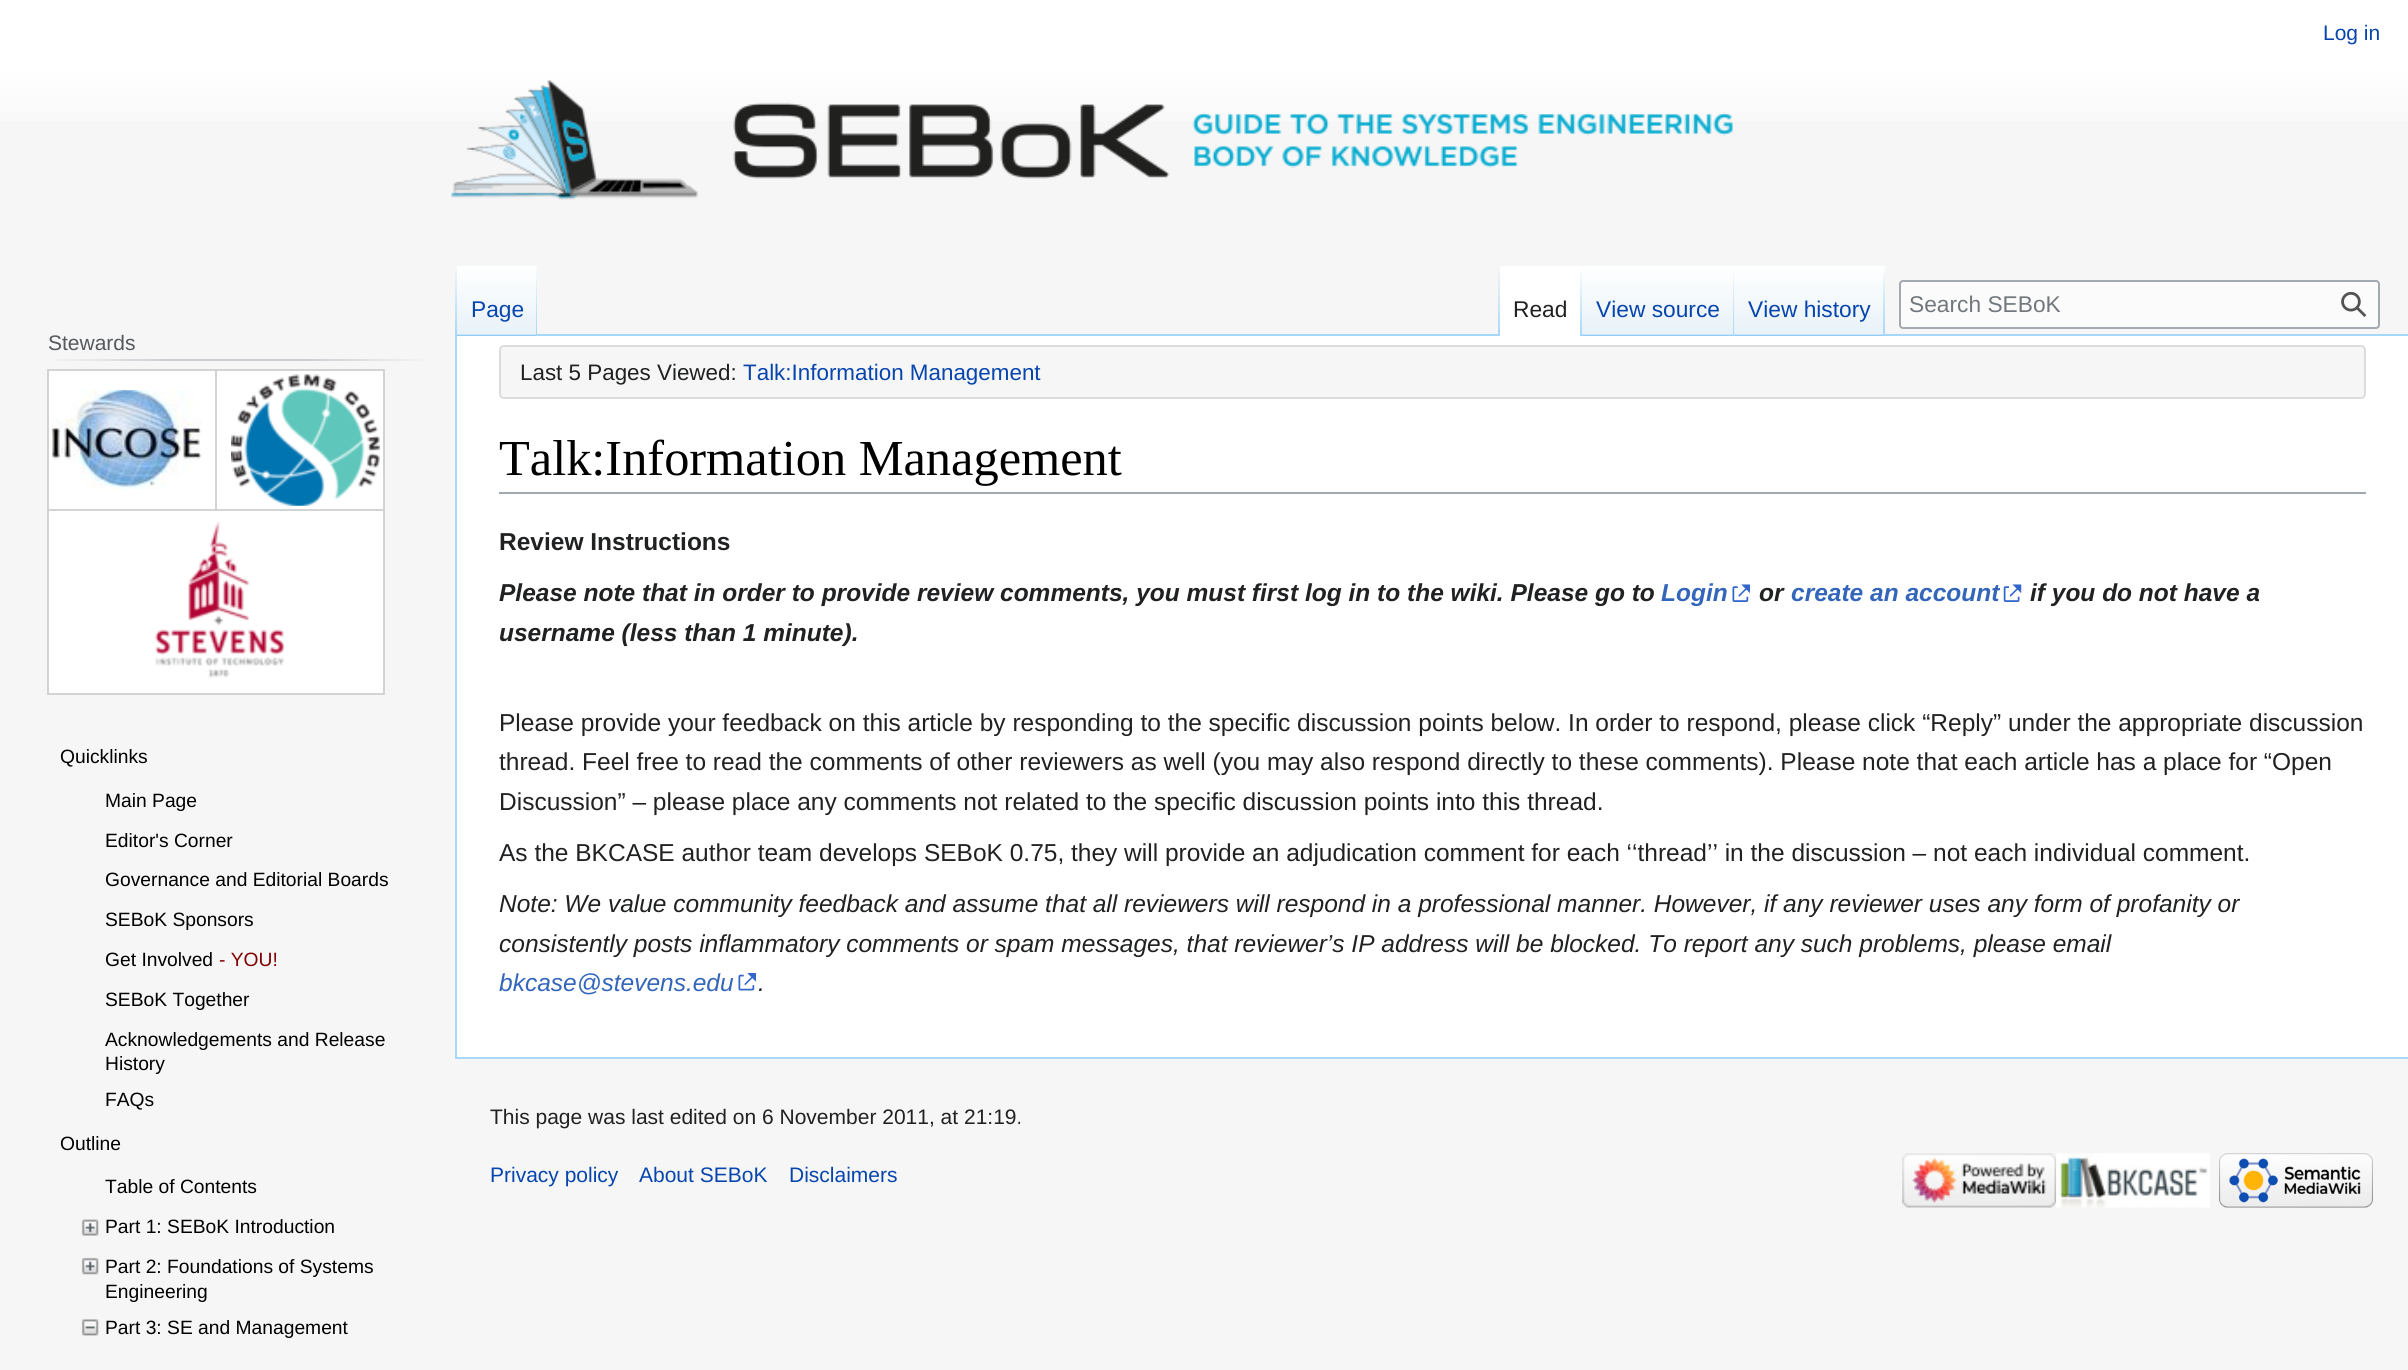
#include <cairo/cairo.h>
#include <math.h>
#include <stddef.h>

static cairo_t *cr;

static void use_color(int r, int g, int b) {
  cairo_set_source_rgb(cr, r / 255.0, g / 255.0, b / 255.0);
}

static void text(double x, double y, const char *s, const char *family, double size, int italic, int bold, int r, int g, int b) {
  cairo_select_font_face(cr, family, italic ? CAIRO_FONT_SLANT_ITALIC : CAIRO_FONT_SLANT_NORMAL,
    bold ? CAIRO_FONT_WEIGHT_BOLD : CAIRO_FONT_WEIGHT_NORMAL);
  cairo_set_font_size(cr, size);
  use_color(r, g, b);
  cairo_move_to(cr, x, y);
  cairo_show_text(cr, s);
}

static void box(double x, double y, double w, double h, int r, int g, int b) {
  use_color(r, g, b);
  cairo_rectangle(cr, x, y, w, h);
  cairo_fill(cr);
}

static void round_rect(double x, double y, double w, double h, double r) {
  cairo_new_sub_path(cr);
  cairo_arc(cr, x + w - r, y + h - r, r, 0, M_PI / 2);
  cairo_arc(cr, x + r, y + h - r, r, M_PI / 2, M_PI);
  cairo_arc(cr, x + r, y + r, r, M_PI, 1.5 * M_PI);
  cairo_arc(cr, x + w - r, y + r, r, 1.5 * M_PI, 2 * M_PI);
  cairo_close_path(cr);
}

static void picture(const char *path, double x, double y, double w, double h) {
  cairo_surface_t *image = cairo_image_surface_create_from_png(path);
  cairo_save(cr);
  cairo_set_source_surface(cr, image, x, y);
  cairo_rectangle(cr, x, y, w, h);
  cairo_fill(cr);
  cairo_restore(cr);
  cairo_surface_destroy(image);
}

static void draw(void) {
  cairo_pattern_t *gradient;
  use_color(246, 246, 246);
  cairo_paint(cr);
  gradient = cairo_pattern_create_linear(1204, 0, 1204, 140);
  cairo_pattern_add_color_stop_rgba(gradient, 0.5, 1, 1, 1, 1);
  cairo_pattern_add_color_stop_rgba(gradient, 1, 0.965, 0.965, 0.965, 1);
  cairo_set_source(cr, gradient);
  cairo_pattern_destroy(gradient);
  cairo_rectangle(cr, 0, 0, 2408, 121);
  cairo_fill(cr);
  box(455, 1057, 1953, 2, 167, 215, 249);
  box(455, 334, 2, 725, 167, 215, 249);
  gradient = cairo_pattern_create_linear(456, 266, 456, 336);
  cairo_pattern_add_color_stop_rgba(gradient, 0, 0.655, 0.843, 0.976, 0);
  cairo_pattern_add_color_stop_rgba(gradient, 1, 0.655, 0.843, 0.976, 1);
  cairo_set_source(cr, gradient);
  cairo_pattern_destroy(gradient);
  cairo_rectangle(cr, 455, 266, 2, 70);
  cairo_fill(cr);
  gradient = cairo_pattern_create_linear(497, 336, 497, 266);
  cairo_pattern_add_color_stop_rgba(gradient, 0, 0.467, 0.757, 0.965, 1);
  cairo_pattern_add_color_stop_rgba(gradient, 0.03, 0.91, 0.949, 0.973, 1);
  cairo_pattern_add_color_stop_rgba(gradient, 1, 1, 1, 1, 1);
  cairo_set_source(cr, gradient);
  cairo_pattern_destroy(gradient);
  cairo_rectangle(cr, 457, 266, 80, 70);
  cairo_fill(cr);
  gradient = cairo_pattern_create_linear(536, 266, 536, 336);
  cairo_pattern_add_color_stop_rgba(gradient, 0, 0.655, 0.843, 0.976, 0);
  cairo_pattern_add_color_stop_rgba(gradient, 1, 0.655, 0.843, 0.976, 1);
  cairo_set_source(cr, gradient);
  cairo_pattern_destroy(gradient);
  cairo_rectangle(cr, 536, 266, 1, 70);
  cairo_fill(cr);
  box(537, 334, 1871, 2, 167, 215, 249);
  gradient = cairo_pattern_create_linear(1499, 266, 1499, 336);
  cairo_pattern_add_color_stop_rgba(gradient, 0, 0.655, 0.843, 0.976, 0);
  cairo_pattern_add_color_stop_rgba(gradient, 1, 0.655, 0.843, 0.976, 1);
  cairo_set_source(cr, gradient);
  cairo_pattern_destroy(gradient);
  cairo_rectangle(cr, 1498, 266, 2, 70);
  cairo_fill(cr);
  box(1500, 266, 80, 70, 255, 255, 255);
  gradient = cairo_pattern_create_linear(1581, 266, 1581, 336);
  cairo_pattern_add_color_stop_rgba(gradient, 0, 1, 1, 1, 1);
  cairo_pattern_add_color_stop_rgba(gradient, 1, 0.655, 0.843, 0.976, 1);
  cairo_set_source(cr, gradient);
  cairo_pattern_destroy(gradient);
  cairo_rectangle(cr, 1580, 266, 2, 70);
  cairo_fill(cr);
  gradient = cairo_pattern_create_linear(1658, 336, 1658, 266);
  cairo_pattern_add_color_stop_rgba(gradient, 0, 0.467, 0.757, 0.965, 1);
  cairo_pattern_add_color_stop_rgba(gradient, 0.03, 0.91, 0.949, 0.973, 1);
  cairo_pattern_add_color_stop_rgba(gradient, 1, 1, 1, 1, 1);
  cairo_set_source(cr, gradient);
  cairo_pattern_destroy(gradient);
  cairo_rectangle(cr, 1582, 266, 152, 70);
  cairo_fill(cr);
  gradient = cairo_pattern_create_linear(1733, 266, 1733, 336);
  cairo_pattern_add_color_stop_rgba(gradient, 0, 0.655, 0.843, 0.976, 0);
  cairo_pattern_add_color_stop_rgba(gradient, 1, 0.655, 0.843, 0.976, 1);
  cairo_set_source(cr, gradient);
  cairo_pattern_destroy(gradient);
  cairo_rectangle(cr, 1733, 266, 1, 70);
  cairo_fill(cr);
  gradient = cairo_pattern_create_linear(1810, 336, 1810, 266);
  cairo_pattern_add_color_stop_rgba(gradient, 0, 0.467, 0.757, 0.965, 1);
  cairo_pattern_add_color_stop_rgba(gradient, 0.03, 0.91, 0.949, 0.973, 1);
  cairo_pattern_add_color_stop_rgba(gradient, 1, 1, 1, 1, 1);
  cairo_set_source(cr, gradient);
  cairo_pattern_destroy(gradient);
  cairo_rectangle(cr, 1734, 266, 151, 70);
  cairo_fill(cr);
  gradient = cairo_pattern_create_linear(1884, 266, 1884, 336);
  cairo_pattern_add_color_stop_rgba(gradient, 0, 0.655, 0.843, 0.976, 0);
  cairo_pattern_add_color_stop_rgba(gradient, 1, 0.655, 0.843, 0.976, 1);
  cairo_set_source(cr, gradient);
  cairo_pattern_destroy(gradient);
  cairo_rectangle(cr, 1883, 266, 2, 70);
  cairo_fill(cr);
  use_color(251, 251, 251);
  round_rect(1900, 281, 479, 47, 3);
  cairo_fill_preserve(cr);
  use_color(162, 169, 177);
  cairo_stroke(cr);
  picture("img_01.png", 2341, 291, 26, 26);
  picture("img_02.png", 451, 80, 1282, 120);
  gradient = cairo_pattern_create_linear(47, 360, 431, 360);
  cairo_pattern_add_color_stop_rgba(gradient, 0, 0.965, 0.965, 0.965, 1);
  cairo_pattern_add_color_stop_rgba(gradient, 0.33, 0.784, 0.8, 0.82, 1);
  cairo_pattern_add_color_stop_rgba(gradient, 0.66, 0.784, 0.8, 0.82, 1);
  cairo_pattern_add_color_stop_rgba(gradient, 1, 0.965, 0.965, 0.965, 1);
  cairo_set_source(cr, gradient);
  cairo_pattern_destroy(gradient);
  cairo_rectangle(cr, 47, 359, 384, 2);
  cairo_fill(cr);
  box(47, 369, 338, 2, 211, 211, 211);
  box(383, 369, 2, 326, 211, 211, 211);
  box(47, 693, 338, 2, 211, 211, 211);
  box(47, 369, 2, 326, 211, 211, 211);
  box(49, 371, 166, 138, 255, 255, 255);
  picture("img_03.png", 52, 390, 150, 100);
  box(217, 371, 166, 138, 255, 255, 255);
  box(47, 509, 338, 2, 211, 211, 211);
  box(215, 369, 2, 142, 211, 211, 211);
  picture("img_04.png", 231, 374, 149, 132);
  box(49, 511, 334, 182, 255, 255, 255);
  picture("img_05.png", 155, 521, 130, 157);
  picture("img_06.png", 81, 1219, 18, 17);
  picture("img_07.png", 81, 1257, 18, 18);
  picture("img_08.png", 81, 1319, 18, 17);
  box(457, 336, 1951, 721, 255, 255, 255);
  use_color(246, 246, 246);
  round_rect(500, 346, 1865, 52, 4);
  cairo_fill_preserve(cr);
  use_color(220, 220, 220);
  cairo_stroke(cr);
  box(499, 492, 1867, 2, 162, 169, 177);
  picture("img_09.png", 1732, 584, 18, 18);
  picture("img_10.png", 2003, 584, 19, 18);
  picture("img_11.png", 738, 973, 18, 18);
  picture("img_12.png", 1902, 1153, 155, 55);
  picture("img_13.png", 2056, 1153, 154, 55);
  picture("img_14.png", 2219, 1153, 154, 55);
  text(2323, 40, "Log in", "Liberation Sans", 21, 0, 0, 6, 69, 173);
  text(471, 317, "Page", "Liberation Sans", 22.75, 0, 0, 6, 69, 173);
  text(1513, 317, "Read", "Liberation Sans", 22.75, 0, 0, 32, 33, 34);
  text(1596, 317, "View source", "Liberation Sans", 22.75, 0, 0, 6, 69, 173);
  text(1748, 317, "View history", "Liberation Sans", 22.75, 0, 0, 6, 69, 173);
  text(1909, 312, "Search SEBoK", "Liberation Sans", 22.75, 0, 0, 114, 119, 125);
  text(48, 350, "Stewards", "Liberation Sans", 21, 0, 0, 84, 89, 93);
  text(60, 763, "Quicklinks", "Liberation Sans", 19.25, 0, 0, 0, 0, 0);
  text(105, 807, "Main Page", "Liberation Sans", 19.25, 0, 0, 0, 0, 0);
  text(105, 847, "Editor's Corner", "Liberation Sans", 19.25, 0, 0, 0, 0, 0);
  text(105, 886, "Governance and Editorial Boards", "Liberation Sans", 19.25, 0, 0, 0, 0, 0);
  text(105, 926, "SEBoK Sponsors", "Liberation Sans", 19.25, 0, 0, 0, 0, 0);
  text(105, 966, "Get Involved", "Liberation Sans", 19.25, 0, 0, 0, 0, 0);
  text(219, 966, "- YOU!", "Liberation Sans", 19.25, 0, 0, 128, 0, 0);
  text(105, 1006, "SEBoK Together", "Liberation Sans", 19.25, 0, 0, 0, 0, 0);
  text(105, 1046, "Acknowledgements and Release", "Liberation Sans", 19.25, 0, 0, 0, 0, 0);
  text(105, 1070, "History", "Liberation Sans", 19.25, 0, 0, 0, 0, 0);
  text(105, 1106, "FAQs", "Liberation Sans", 19.25, 0, 0, 0, 0, 0);
  text(60, 1150, "Outline", "Liberation Sans", 19.25, 0, 0, 0, 0, 0);
  text(105, 1193, "Table of Contents", "Liberation Sans", 19.25, 0, 0, 0, 0, 0);
  text(105, 1233, "Part 1: SEBoK Introduction", "Liberation Sans", 19.25, 0, 0, 0, 0, 0);
  text(105, 1273, "Part 2: Foundations of Systems", "Liberation Sans", 19.25, 0, 0, 0, 0, 0);
  text(105, 1298, "Engineering", "Liberation Sans", 19.25, 0, 0, 0, 0, 0);
  text(105, 1334, "Part 3: SE and Management", "Liberation Sans", 19.25, 0, 0, 0, 0, 0);
  text(520, 380, "Last 5 Pages Viewed:", "Liberation Sans", 22.4, 0, 0, 32, 33, 34);
  text(743, 380, "Talk:Information Management", "Liberation Sans", 22.4, 0, 0, 6, 69, 173);
  text(499, 475, "Talk:Information Management", "Liberation Serif", 50.4, 0, 0, 0, 0, 0);
  text(499, 550, "Review Instructions", "Liberation Sans", 24.5, 0, 1, 32, 33, 34);
  text(499, 601, "Please note that in order to provide review comments, you must first log in to the wiki. Please go to", "Liberation Sans", 24.5, 1, 1, 32, 33, 34);
  text(1661, 601, "Login", "Liberation Sans", 24.5, 1, 1, 51, 102, 187);
  text(1759, 601, "or", "Liberation Sans", 24.5, 1, 1, 32, 33, 34);
  text(1791, 601, "create an account", "Liberation Sans", 24.5, 1, 1, 51, 102, 187);
  text(2030, 601, "if you do not have a", "Liberation Sans", 24.5, 1, 1, 32, 33, 34);
  text(499, 641, "username (less than 1 minute).", "Liberation Sans", 24.5, 1, 1, 32, 33, 34);
  text(499, 731, "Please provide your feedback on this article by responding to the specific discussion points below. In order to respond, please click “Reply” under the appropriate discussion", "Liberation Sans", 24.5, 0, 0, 32, 33, 34);
  text(499, 770, "thread. Feel free to read the comments of other reviewers as well (you may also respond directly to these comments). Please note that each article has a place for “Open", "Liberation Sans", 24.5, 0, 0, 32, 33, 34);
  text(499, 810, "Discussion” – please place any comments not related to the specific discussion points into this thread.", "Liberation Sans", 24.5, 0, 0, 32, 33, 34);
  text(499, 861, "As the BKCASE author team develops SEBoK 0.75, they will provide an adjudication comment for each ‘‘thread’’ in the discussion – not each individual comment.", "Liberation Sans", 24.5, 0, 0, 32, 33, 34);
  text(499, 912, "Note: We value community feedback and assume that all reviewers will respond in a professional manner. However, if any reviewer uses any form of profanity or", "Liberation Sans", 24.5, 1, 0, 32, 33, 34);
  text(499, 952, "consistently posts inflammatory comments or spam messages, that reviewer’s IP address will be blocked. To report any such problems, please email", "Liberation Sans", 24.5, 1, 0, 32, 33, 34);
  text(499, 991, "bkcase@stevens.edu", "Liberation Sans", 24.5, 1, 0, 51, 102, 187);
  text(758, 991, ".", "Liberation Sans", 24.5, 1, 0, 32, 33, 34);
  text(490, 1124, "This page was last edited on 6 November 2011, at 21:19.", "Liberation Sans", 21, 0, 0, 32, 33, 34);
  text(490, 1182, "Privacy policy", "Liberation Sans", 21, 0, 0, 6, 69, 173);
  text(639, 1182, "About SEBoK", "Liberation Sans", 21, 0, 0, 6, 69, 173);
  text(789, 1182, "Disclaimers", "Liberation Sans", 21, 0, 0, 6, 69, 173);
}

int main(void) {
  cairo_surface_t *surface = cairo_image_surface_create(CAIRO_FORMAT_RGB24, 2408, 1370);
  cr = cairo_create(surface);
  cairo_font_options_t *options = cairo_font_options_create();
  cairo_font_options_set_hint_metrics(options, CAIRO_HINT_METRICS_OFF);
  cairo_font_options_set_hint_style(options, CAIRO_HINT_STYLE_NONE);
  cairo_set_font_options(cr, options);
  cairo_set_miter_limit(cr, 4);
  draw();
  cairo_surface_write_to_png(surface, "out.png");
  cairo_font_options_destroy(options);
  cairo_destroy(cr);
  cairo_surface_destroy(surface);
  return 0;
}
